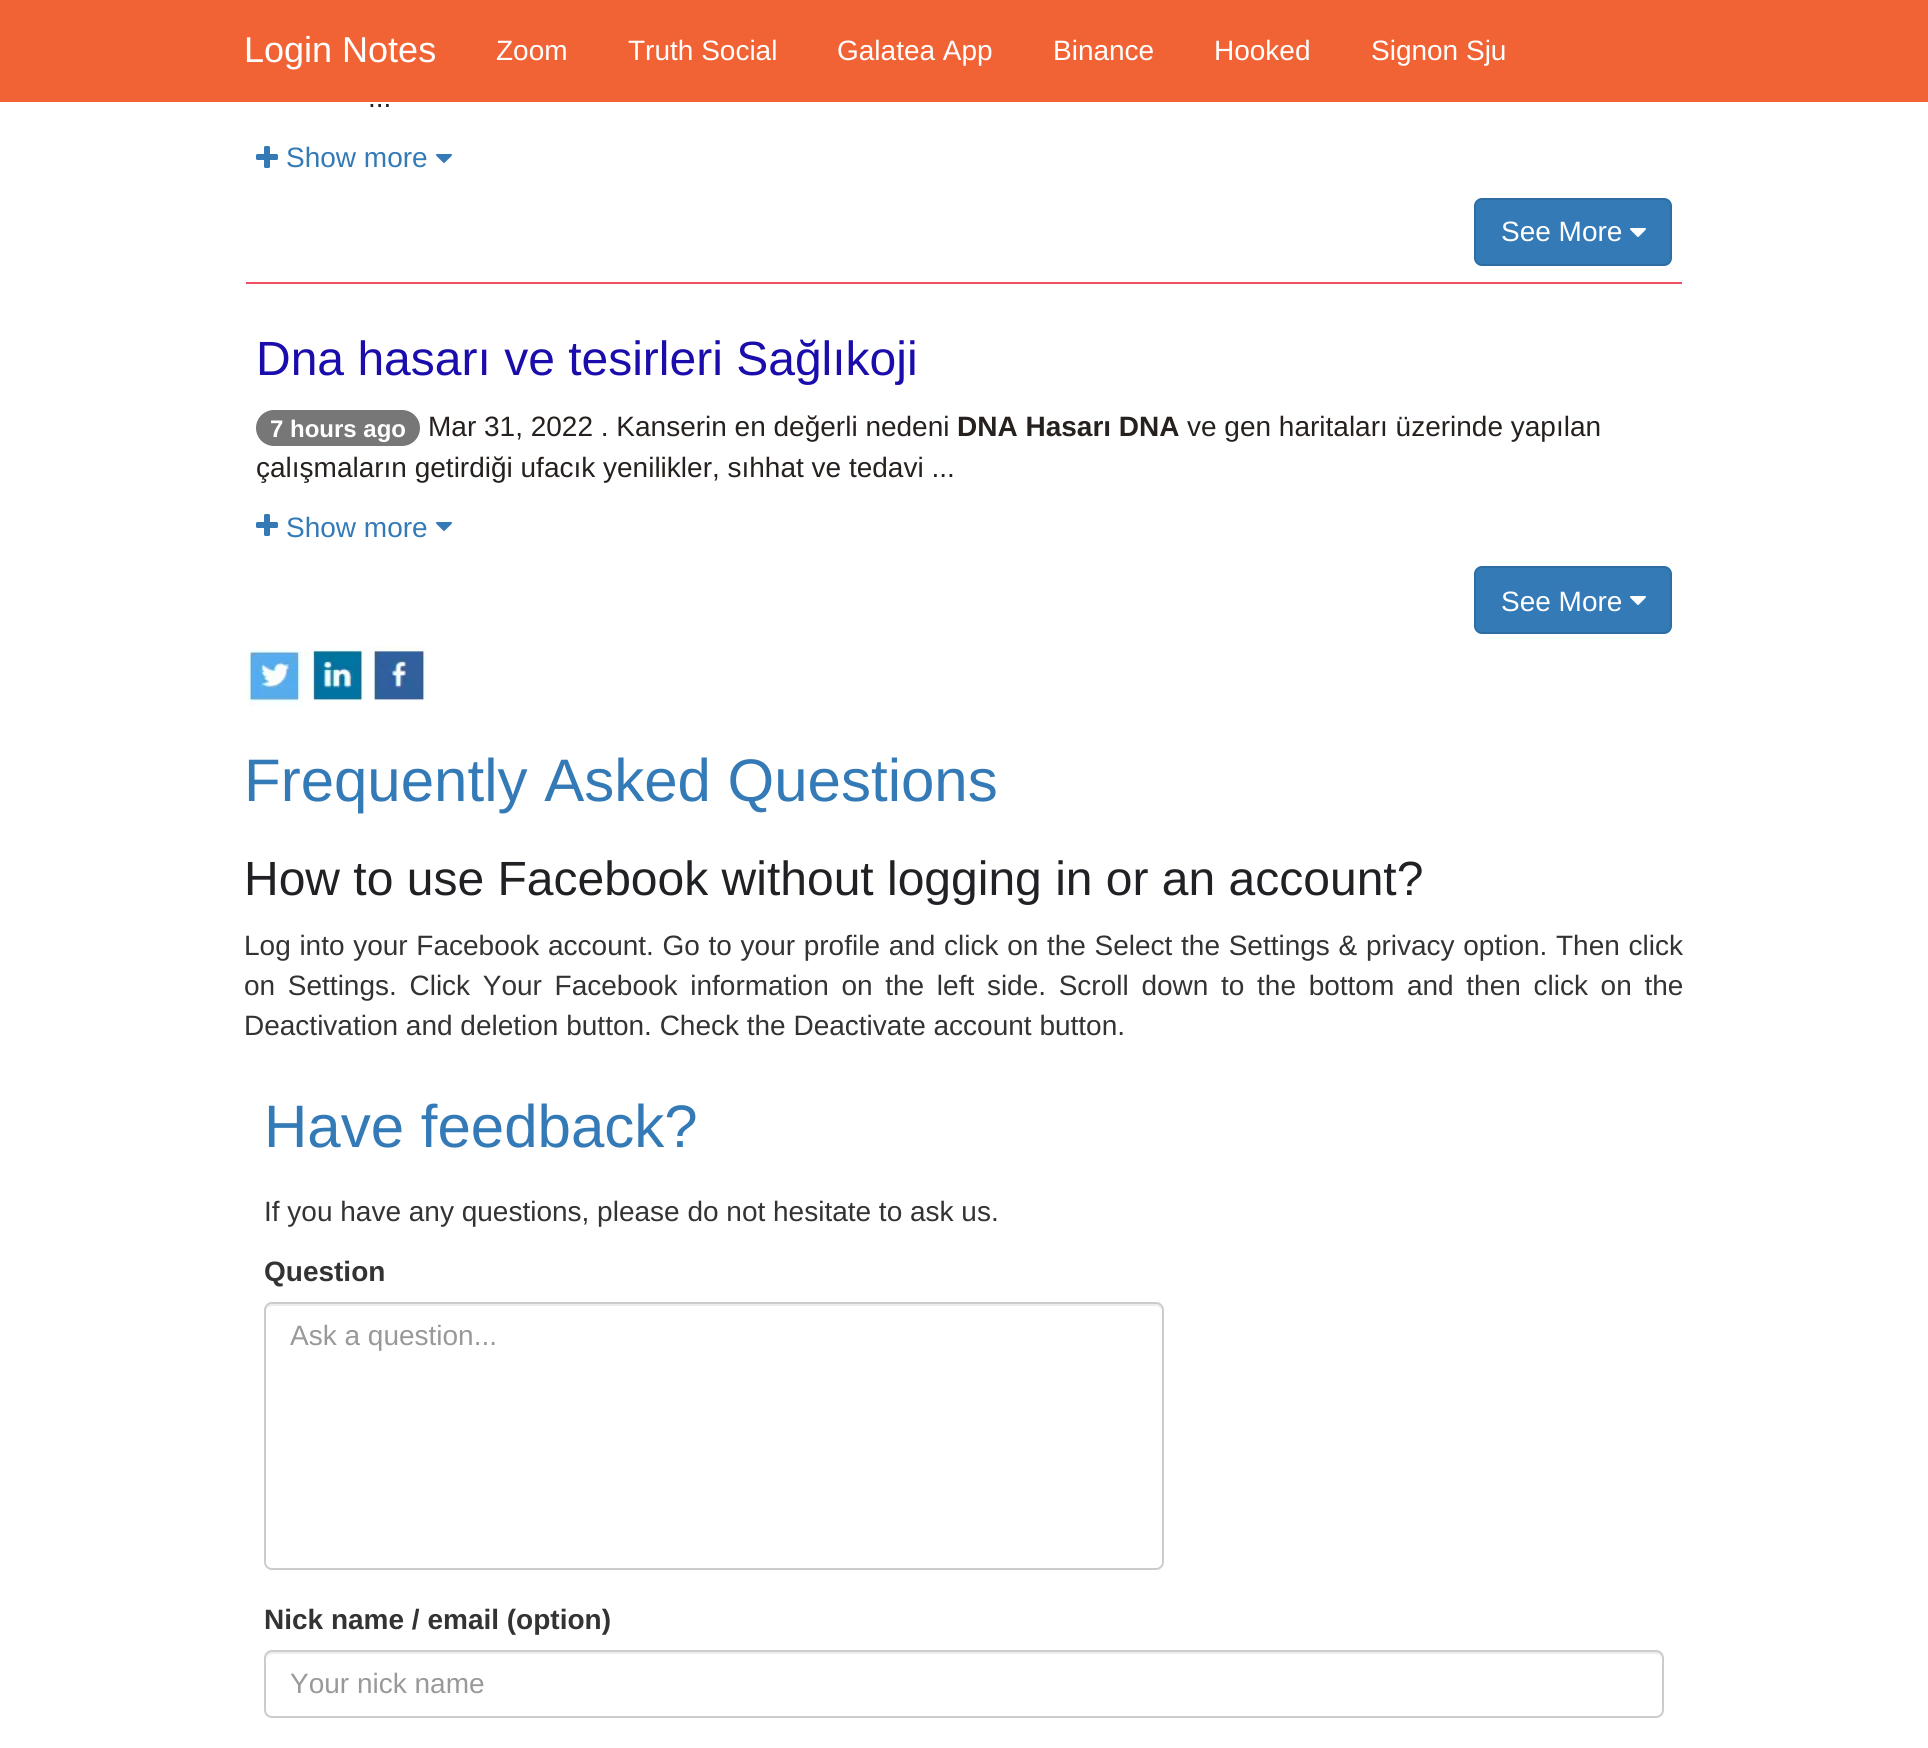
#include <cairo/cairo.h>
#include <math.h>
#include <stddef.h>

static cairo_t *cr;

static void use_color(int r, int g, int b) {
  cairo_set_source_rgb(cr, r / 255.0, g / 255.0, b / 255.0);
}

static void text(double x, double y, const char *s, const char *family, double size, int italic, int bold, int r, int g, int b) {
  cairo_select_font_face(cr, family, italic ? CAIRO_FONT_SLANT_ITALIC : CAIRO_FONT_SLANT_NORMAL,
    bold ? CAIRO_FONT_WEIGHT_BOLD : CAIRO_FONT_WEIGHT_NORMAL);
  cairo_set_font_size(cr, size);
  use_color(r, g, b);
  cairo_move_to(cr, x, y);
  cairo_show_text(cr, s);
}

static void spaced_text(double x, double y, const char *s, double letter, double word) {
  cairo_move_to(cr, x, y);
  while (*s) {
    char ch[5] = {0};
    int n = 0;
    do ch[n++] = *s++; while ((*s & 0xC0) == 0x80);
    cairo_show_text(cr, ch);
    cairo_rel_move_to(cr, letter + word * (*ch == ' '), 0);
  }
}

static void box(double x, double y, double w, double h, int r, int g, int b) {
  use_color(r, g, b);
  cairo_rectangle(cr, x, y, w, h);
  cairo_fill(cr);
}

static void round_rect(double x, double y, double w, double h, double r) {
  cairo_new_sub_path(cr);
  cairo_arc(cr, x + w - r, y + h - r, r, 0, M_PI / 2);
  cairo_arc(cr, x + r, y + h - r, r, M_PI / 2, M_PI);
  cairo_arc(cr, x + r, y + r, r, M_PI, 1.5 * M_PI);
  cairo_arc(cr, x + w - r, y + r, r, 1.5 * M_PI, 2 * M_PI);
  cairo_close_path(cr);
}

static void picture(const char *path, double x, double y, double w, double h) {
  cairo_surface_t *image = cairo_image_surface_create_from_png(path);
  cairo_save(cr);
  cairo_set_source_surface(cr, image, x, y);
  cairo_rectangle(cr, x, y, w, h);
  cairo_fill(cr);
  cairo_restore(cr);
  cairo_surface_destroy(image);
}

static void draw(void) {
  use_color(255, 255, 255);
  cairo_paint(cr);
  box(0, 0, 1928, 102, 241, 99, 52);
  picture("img_01.png", 256, 146, 22, 22);
  picture("img_02.png", 436, 154, 16, 9);
  use_color(51, 122, 183);
  round_rect(1475, 199, 196, 66, 7);
  cairo_fill_preserve(cr);
  use_color(46, 109, 164);
  cairo_stroke(cr);
  picture("img_03.png", 1630, 228, 16, 9);
  box(244, 282, 1440, 2, 243, 78, 99);
  box(1682, 282, 2, 2, 255, 255, 255);
  box(244, 282, 2, 2, 255, 255, 255);
  use_color(119, 119, 119);
  round_rect(256, 410, 164, 36, 18);
  cairo_fill(cr);
  picture("img_01.png", 256, 514, 22, 22);
  picture("img_02.png", 436, 522, 16, 9);
  use_color(51, 122, 183);
  round_rect(1475, 567, 196, 66, 7);
  cairo_fill_preserve(cr);
  use_color(46, 109, 164);
  cairo_stroke(cr);
  picture("img_03.png", 1630, 596, 16, 9);
  picture("img_04.png", 244, 646, 62, 60);
  picture("img_05.png", 306, 646, 62, 55);
  picture("img_06.png", 368, 646, 59, 55);
  use_color(236, 236, 236);
  cairo_new_path(cr);
  cairo_move_to(cr, 272, 1306);
  cairo_line_to(cr, 1156, 1306);
  cairo_curve_to(cr, 1159, 1306, 1162, 1309, 1162, 1312);
  cairo_line_to(cr, 1162, 1310);
  cairo_curve_to(cr, 1162, 1307, 1159, 1304, 1156, 1304);
  cairo_line_to(cr, 272, 1304);
  cairo_curve_to(cr, 269, 1304, 266, 1307, 266, 1310);
  cairo_line_to(cr, 266, 1312);
  cairo_curve_to(cr, 266, 1309, 269, 1306, 272, 1306);
  cairo_close_path(cr);
  cairo_fill(cr);
  round_rect(265, 1303, 898, 266, 7);
  use_color(204, 204, 204);
  cairo_stroke(cr);
  use_color(236, 236, 236);
  cairo_new_path(cr);
  cairo_move_to(cr, 272, 1654);
  cairo_line_to(cr, 1656, 1654);
  cairo_curve_to(cr, 1659, 1654, 1662, 1657, 1662, 1660);
  cairo_curve_to(cr, 1662, 1656, 1661, 1652, 1656, 1652);
  cairo_line_to(cr, 272, 1652);
  cairo_curve_to(cr, 267, 1652, 266, 1656, 266, 1660);
  cairo_curve_to(cr, 266, 1657, 269, 1654, 272, 1654);
  cairo_close_path(cr);
  cairo_fill(cr);
  round_rect(265, 1651, 1398, 66, 7);
  use_color(204, 204, 204);
  cairo_stroke(cr);
  text(244, 62, "Login Notes", "Liberation Sans", 36, 0, 0, 255, 255, 255);
  text(496, 60, "Zoom", "Liberation Sans", 28, 0, 0, 255, 255, 255);
  text(628, 60, "Truth Social", "Liberation Sans", 28, 0, 0, 255, 255, 255);
  text(837, 60, "Galatea App", "Liberation Sans", 28, 0, 0, 255, 255, 255);
  text(1053, 60, "Binance", "Liberation Sans", 28, 0, 0, 255, 255, 255);
  text(1214, 60, "Hooked", "Liberation Sans", 28, 0, 0, 255, 255, 255);
  text(1371, 60, "Signon Sju", "Liberation Sans", 28, 0, 0, 255, 255, 255);
  text(368, 107, "...", "Liberation Sans", 28, 0, 0, 38, 33, 30);
  text(286, 167, "Show more", "Liberation Sans", 28, 0, 0, 51, 122, 183);
  text(1501, 241, "See More", "Liberation Sans", 28, 0, 0, 255, 255, 255);
  text(256, 375, "Dna hasarı ve tesirleri Sağlıkoji", "Liberation Sans", 48, 0, 0, 26, 13, 171);
  text(270, 437, "7 hours ago", "Liberation Sans", 24, 0, 1, 255, 255, 255);
  text(428, 436, "Mar 31, 2022 . Kanserin en değerli nedeni", "Liberation Sans", 28, 0, 0, 38, 33, 30);
  text(957, 436, "DNA Hasarı DNA", "Liberation Sans", 28, 0, 1, 38, 33, 30);
  text(1187, 436, "ve gen haritaları üzerinde yapılan", "Liberation Sans", 28, 0, 0, 38, 33, 30);
  text(256, 477, "çalışmaların getirdiği ufacık yenilikler, sıhhat ve tedavi ...", "Liberation Sans", 28, 0, 0, 38, 33, 30);
  text(286, 537, "Show more", "Liberation Sans", 28, 0, 0, 51, 122, 183);
  text(1501, 611, "See More", "Liberation Sans", 28, 0, 0, 255, 255, 255);
  text(244, 801, "Frequently Asked Questions", "Liberation Sans", 60, 0, 0, 51, 122, 183);
  text(244, 895, "How to use Facebook without logging in or an account?", "Liberation Sans", 48, 0, 0, 32, 33, 36);
  cairo_set_font_size(cr, 28);
  use_color(51, 51, 51);
  spaced_text(244, 955, "Log into your Facebook account. Go to your profile and click on the Select the Settings & privacy option. Then click", 0, 0.9);
  spaced_text(244, 995, "on Settings. Click Your Facebook information on the left side. Scroll down to the bottom and then click on the", 0, 4.9);
  text(244, 1035, "Deactivation and deletion button. Check the Deactivate account button.", "Liberation Sans", 28, 0, 0, 51, 51, 51);
  text(264, 1147, "Have feedback?", "Liberation Sans", 60, 0, 0, 51, 122, 183);
  text(264, 1221, "If you have any questions, please do not hesitate to ask us.", "Liberation Sans", 28, 0, 0, 51, 51, 51);
  text(264, 1281, "Question", "Liberation Sans", 28, 0, 1, 51, 51, 51);
  text(290, 1345, "Ask a question...", "Liberation Sans", 28, 0, 0, 153, 153, 153);
  text(264, 1629, "Nick name / email (option)", "Liberation Sans", 28, 0, 1, 51, 51, 51);
  text(290, 1693, "Your nick name", "Liberation Sans", 28, 0, 0, 153, 153, 153);
}

int main(void) {
  cairo_surface_t *surface = cairo_image_surface_create(CAIRO_FORMAT_RGB24, 1928, 1748);
  cr = cairo_create(surface);
  cairo_font_options_t *options = cairo_font_options_create();
  cairo_font_options_set_hint_metrics(options, CAIRO_HINT_METRICS_OFF);
  cairo_font_options_set_hint_style(options, CAIRO_HINT_STYLE_NONE);
  cairo_set_font_options(cr, options);
  cairo_set_miter_limit(cr, 4);
  draw();
  cairo_surface_write_to_png(surface, "out.png");
  cairo_font_options_destroy(options);
  cairo_destroy(cr);
  cairo_surface_destroy(surface);
  return 0;
}
